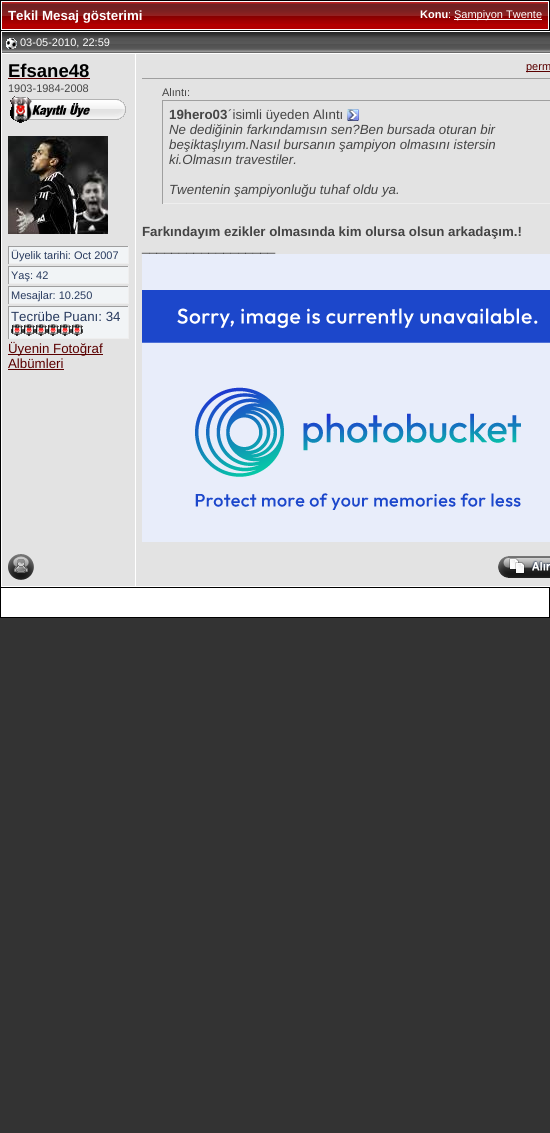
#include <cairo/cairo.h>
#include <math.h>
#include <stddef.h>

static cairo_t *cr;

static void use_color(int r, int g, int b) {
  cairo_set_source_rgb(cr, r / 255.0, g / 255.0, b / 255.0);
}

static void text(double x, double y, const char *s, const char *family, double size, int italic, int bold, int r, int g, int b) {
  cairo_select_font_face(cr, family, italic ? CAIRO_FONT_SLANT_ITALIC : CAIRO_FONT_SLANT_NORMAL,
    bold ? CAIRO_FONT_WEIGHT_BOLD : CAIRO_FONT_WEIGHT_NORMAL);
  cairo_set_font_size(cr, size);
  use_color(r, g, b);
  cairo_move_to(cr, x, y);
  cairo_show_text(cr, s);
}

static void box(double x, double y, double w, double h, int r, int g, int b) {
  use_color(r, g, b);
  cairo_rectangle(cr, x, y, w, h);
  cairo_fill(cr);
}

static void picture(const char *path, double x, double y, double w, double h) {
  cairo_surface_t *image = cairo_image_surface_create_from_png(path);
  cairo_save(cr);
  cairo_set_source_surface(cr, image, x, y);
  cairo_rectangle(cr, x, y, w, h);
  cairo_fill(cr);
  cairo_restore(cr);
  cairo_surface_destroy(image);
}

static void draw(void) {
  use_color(51, 51, 51);
  cairo_paint(cr);
  box(1, 1, 548, 29, 255, 255, 255);
  box(0, 0, 550, 1, 0, 0, 0);
  box(549, 0, 1, 30, 0, 0, 0);
  box(0, 0, 1, 30, 0, 0, 0);
  box(2, 24, 546, 5, 178, 0, 0);
  picture("img_01.png", 2, 2, 546, 22);
  box(454, 19, 88, 1, 255, 255, 255);
  cairo_rectangle(cr, 0.5, 30.5, 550, 557);
  use_color(0, 0, 0);
  cairo_set_line_width(cr, 1);
  cairo_stroke(cr);
  picture("img_02.png", 2, 32, 134, 21);
  box(1, 31, 549, 1, 255, 255, 255);
  box(1, 53, 549, 1, 255, 255, 255);
  box(1, 31, 1, 517, 255, 255, 255);
  picture("img_03.png", 6, 38, 11, 11);
  picture("img_04.png", 136, 32, 414, 21);
  box(2, 54, 133, 532, 227, 227, 227);
  box(135, 54, 1, 533, 255, 255, 255);
  box(8, 78, 82, 1, 90, 0, 0);
  picture("img_05.png", 10, 96, 116, 27);
  picture("img_06.png", 8, 136, 100, 98);
  box(9, 247, 119, 16, 241, 244, 246);
  box(8, 246, 121, 1, 159, 159, 159);
  box(128, 246, 1, 18, 238, 238, 238);
  box(8, 263, 121, 1, 238, 238, 238);
  box(8, 246, 1, 18, 159, 159, 159);
  box(9, 267, 119, 16, 241, 244, 246);
  box(8, 266, 121, 1, 159, 159, 159);
  box(128, 266, 1, 18, 238, 238, 238);
  box(8, 283, 121, 1, 238, 238, 238);
  box(8, 266, 1, 18, 159, 159, 159);
  box(9, 287, 119, 16, 241, 244, 246);
  box(8, 286, 121, 1, 159, 159, 159);
  box(128, 286, 1, 18, 238, 238, 238);
  box(8, 303, 121, 1, 238, 238, 238);
  box(8, 286, 1, 18, 159, 159, 159);
  box(9, 307, 119, 31, 241, 244, 246);
  box(8, 306, 121, 1, 159, 159, 159);
  box(128, 306, 1, 33, 238, 238, 238);
  box(8, 338, 121, 1, 238, 238, 238);
  box(8, 306, 1, 33, 159, 159, 159);
  picture("img_07.png", 11, 324, 12, 12);
  picture("img_07.png", 23, 324, 12, 12);
  picture("img_07.png", 35, 324, 12, 12);
  picture("img_07.png", 47, 324, 12, 12);
  picture("img_07.png", 59, 324, 12, 12);
  picture("img_07.png", 71, 324, 12, 12);
  box(8, 354, 95, 1, 90, 0, 0);
  box(8, 369, 56, 1, 90, 0, 0);
  box(136, 54, 414, 532, 227, 227, 227);
  box(526, 71, 24, 1, 90, 0, 0);
  box(142, 78, 408, 1, 159, 159, 159);
  box(162, 100, 388, 1, 159, 159, 159);
  box(162, 203, 388, 1, 238, 238, 238);
  box(162, 100, 1, 104, 159, 159, 159);
  picture("img_08.png", 347, 109, 12, 12);
  picture("img_09.png", 142, 254, 408, 288);
  box(1, 586, 549, 1, 255, 255, 255);
  box(1, 548, 1, 39, 255, 255, 255);
  picture("img_10.png", 8, 554, 26, 26);
  picture("img_11.png", 498, 556, 52, 22);
  box(1, 588, 548, 29, 255, 255, 255);
  box(549, 588, 1, 30, 0, 0, 0);
  box(0, 617, 550, 1, 0, 0, 0);
  box(0, 588, 1, 30, 0, 0, 0);
  text(8, 20, "Tekil Mesaj gösterimi", "Liberation Sans", 13.3, 0, 1, 255, 255, 255);
  text(420, 18, "Konu", "Liberation Sans", 11, 0, 1, 255, 255, 255);
  text(448, 18, ":", "Liberation Sans", 11, 0, 0, 255, 255, 255);
  text(454, 18, "Şampiyon Twente", "Liberation Sans", 11, 0, 0, 255, 255, 255);
  text(20, 46, "03-05-2010, 22:59", "Liberation Sans", 11, 0, 0, 255, 255, 255);
  text(8, 77, "Efsane48", "Liberation Sans", 18.5, 0, 1, 0, 0, 0);
  text(8, 92, "1903-1984-2008", "Liberation Sans", 11, 0, 0, 68, 68, 68);
  text(11, 259, "Üyelik tarihi: Oct 2007", "Liberation Sans", 11, 0, 0, 40, 58, 94);
  text(11, 279, "Yaş: 42", "Liberation Sans", 11, 0, 0, 40, 58, 94);
  text(11, 299, "Mesajlar: 10.250", "Liberation Sans", 11, 0, 0, 40, 58, 94);
  text(11, 321, "Tecrübe Puanı: 34", "Liberation Sans", 13.3, 0, 0, 40, 58, 94);
  text(8, 353, "Üyenin Fotoğraf", "Liberation Sans", 13.3, 0, 0, 90, 0, 0);
  text(8, 368, "Albümleri", "Liberation Sans", 13.3, 0, 0, 90, 0, 0);
  text(526, 70, "perm", "Liberation Sans", 11, 0, 0, 90, 0, 0);
  text(162, 96, "Alıntı:", "Liberation Sans", 11, 0, 0, 68, 68, 68);
  text(169, 119, "19hero03", "Liberation Sans", 13.3, 0, 1, 68, 68, 68);
  text(228, 119, "´isimli üyeden Alıntı", "Liberation Sans", 13.3, 0, 0, 68, 68, 68);
  text(169, 134, "Ne dediğinin farkındamısın sen?Ben bursada oturan bir", "Liberation Sans", 13.3, 1, 0, 68, 68, 68);
  text(169, 149, "beşiktaşlıyım.Nasıl bursanın şampiyon olmasını istersin", "Liberation Sans", 13.3, 1, 0, 68, 68, 68);
  text(169, 164, "ki.Olmasın travestiler.", "Liberation Sans", 13.3, 1, 0, 68, 68, 68);
  text(169, 194, "Twentenin şampiyonluğu tuhaf oldu ya.", "Liberation Sans", 13.3, 1, 0, 68, 68, 68);
  text(142, 236, "Farkındayım ezikler olmasında kim olursa olsun arkadaşım.!", "Liberation Sans", 13.3, 0, 1, 68, 68, 68);
  text(142, 251, "__________________", "Liberation Sans", 13.3, 0, 0, 68, 68, 68);
}

int main(void) {
  cairo_surface_t *surface = cairo_image_surface_create(CAIRO_FORMAT_RGB24, 550, 1133);
  cr = cairo_create(surface);
  cairo_font_options_t *options = cairo_font_options_create();
  cairo_font_options_set_hint_metrics(options, CAIRO_HINT_METRICS_OFF);
  cairo_font_options_set_hint_style(options, CAIRO_HINT_STYLE_NONE);
  cairo_set_font_options(cr, options);
  cairo_set_miter_limit(cr, 4);
  draw();
  cairo_surface_write_to_png(surface, "out.png");
  cairo_font_options_destroy(options);
  cairo_destroy(cr);
  cairo_surface_destroy(surface);
  return 0;
}
